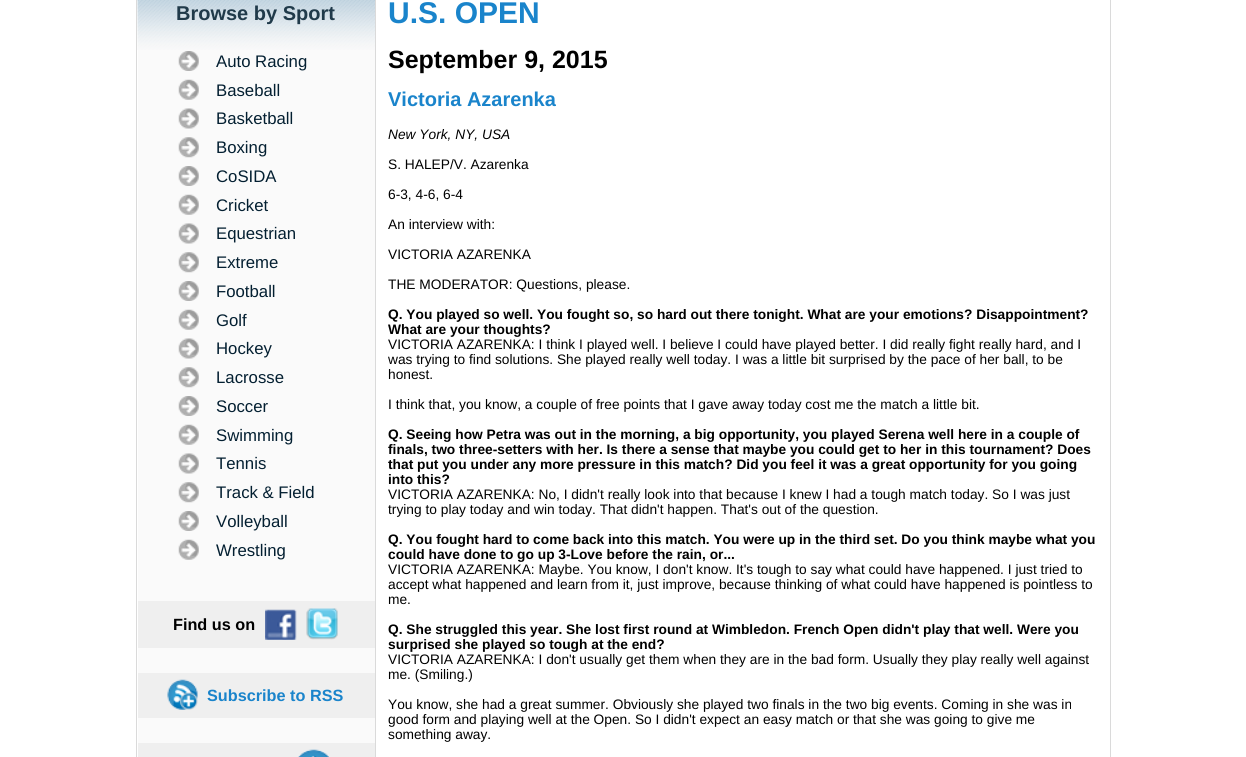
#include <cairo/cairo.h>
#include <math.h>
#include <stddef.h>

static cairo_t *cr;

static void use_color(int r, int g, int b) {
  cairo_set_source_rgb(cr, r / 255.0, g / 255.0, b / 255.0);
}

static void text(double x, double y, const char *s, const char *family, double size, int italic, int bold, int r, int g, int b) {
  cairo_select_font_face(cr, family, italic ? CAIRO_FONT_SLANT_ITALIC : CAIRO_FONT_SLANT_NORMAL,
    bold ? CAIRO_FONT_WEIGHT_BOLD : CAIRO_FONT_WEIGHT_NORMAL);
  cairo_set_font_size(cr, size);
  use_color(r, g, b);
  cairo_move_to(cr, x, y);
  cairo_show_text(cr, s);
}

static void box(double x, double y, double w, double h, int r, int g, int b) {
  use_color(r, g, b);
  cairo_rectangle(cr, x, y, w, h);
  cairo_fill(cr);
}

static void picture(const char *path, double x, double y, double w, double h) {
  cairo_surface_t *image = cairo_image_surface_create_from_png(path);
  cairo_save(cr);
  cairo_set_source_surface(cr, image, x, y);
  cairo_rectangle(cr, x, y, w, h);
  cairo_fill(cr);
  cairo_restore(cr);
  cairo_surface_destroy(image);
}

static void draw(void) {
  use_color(255, 255, 255);
  cairo_paint(cr);
  box(136, 0, 1, 757, 218, 218, 218);
  box(138, 50, 237, 693, 250, 250, 250);
  picture("img_01.png", 137, 0, 238, 50);
  picture("img_02.png", 178, 51, 21, 20);
  picture("img_03.png", 178, 79, 21, 21);
  picture("img_04.png", 178, 108, 21, 21);
  picture("img_05.png", 178, 137, 21, 21);
  picture("img_02.png", 178, 166, 21, 20);
  picture("img_03.png", 178, 194, 21, 21);
  picture("img_04.png", 178, 223, 21, 21);
  picture("img_05.png", 178, 252, 21, 21);
  picture("img_06.png", 178, 281, 21, 20);
  picture("img_03.png", 178, 309, 21, 21);
  picture("img_04.png", 178, 338, 21, 21);
  picture("img_05.png", 178, 367, 21, 21);
  picture("img_02.png", 178, 396, 21, 20);
  picture("img_03.png", 178, 424, 21, 21);
  picture("img_04.png", 178, 453, 21, 21);
  picture("img_05.png", 178, 482, 21, 21);
  picture("img_02.png", 178, 511, 21, 20);
  picture("img_03.png", 178, 539, 21, 21);
  box(138, 601, 237, 47, 239, 239, 239);
  picture("img_07.png", 265, 609, 32, 31);
  picture("img_08.png", 306, 608, 32, 32);
  box(138, 673, 237, 45, 239, 239, 239);
  picture("img_09.png", 167, 679, 31, 31);
  box(138, 743, 237, 14, 239, 239, 239);
  picture("img_10.png", 298, 749, 31, 8);
  box(375, 0, 1, 757, 218, 218, 218);
  box(1110, 0, 1, 757, 218, 218, 218);
  text(176, 20, "Browse by Sport", "Liberation Sans", 20, 0, 1, 32, 58, 74);
  text(216, 67, "Auto Racing", "Liberation Sans", 16.75, 0, 0, 3, 31, 49);
  text(216, 96, "Baseball", "Liberation Sans", 16.75, 0, 0, 3, 31, 49);
  text(216, 124, "Basketball", "Liberation Sans", 16.75, 0, 0, 3, 31, 49);
  text(216, 153, "Boxing", "Liberation Sans", 16.75, 0, 0, 3, 31, 49);
  text(216, 182, "CoSIDA", "Liberation Sans", 16.75, 0, 0, 3, 31, 49);
  text(216, 211, "Cricket", "Liberation Sans", 16.75, 0, 0, 3, 31, 49);
  text(216, 239, "Equestrian", "Liberation Sans", 16.75, 0, 0, 3, 31, 49);
  text(216, 268, "Extreme", "Liberation Sans", 16.75, 0, 0, 3, 31, 49);
  text(216, 297, "Football", "Liberation Sans", 16.75, 0, 0, 3, 31, 49);
  text(216, 326, "Golf", "Liberation Sans", 16.75, 0, 0, 3, 31, 49);
  text(216, 354, "Hockey", "Liberation Sans", 16.75, 0, 0, 3, 31, 49);
  text(216, 383, "Lacrosse", "Liberation Sans", 16.75, 0, 0, 3, 31, 49);
  text(216, 412, "Soccer", "Liberation Sans", 16.75, 0, 0, 3, 31, 49);
  text(216, 441, "Swimming", "Liberation Sans", 16.75, 0, 0, 3, 31, 49);
  text(216, 469, "Tennis", "Liberation Sans", 16.75, 0, 0, 3, 31, 49);
  text(216, 498, "Track & Field", "Liberation Sans", 16.75, 0, 0, 3, 31, 49);
  text(216, 527, "Volleyball", "Liberation Sans", 16.75, 0, 0, 3, 31, 49);
  text(216, 556, "Wrestling", "Liberation Sans", 16.75, 0, 0, 3, 31, 49);
  text(173, 630, "Find us on", "Liberation Sans", 16.25, 0, 1, 0, 0, 0);
  text(207, 701, "Subscribe to RSS", "Liberation Sans", 16.25, 0, 1, 26, 132, 203);
  text(388, 23, "U.S. OPEN", "Liberation Sans", 30, 0, 1, 26, 132, 203);
  text(388, 68, "September 9, 2015", "Liberation Sans", 25, 0, 1, 0, 0, 0);
  text(388, 106, "Victoria Azarenka", "Liberation Sans", 20, 0, 1, 26, 132, 203);
  text(388, 139, "New York, NY, USA", "Liberation Sans", 13.75, 1, 0, 0, 0, 0);
  text(388, 169, "S. HALEP/V. Azarenka", "Liberation Sans", 13.75, 0, 0, 0, 0, 0);
  text(388, 199, "6-3, 4-6, 6-4", "Liberation Sans", 13.75, 0, 0, 0, 0, 0);
  text(388, 229, "An interview with:", "Liberation Sans", 13.75, 0, 0, 0, 0, 0);
  text(388, 259, "VICTORIA AZARENKA", "Liberation Sans", 13.75, 0, 0, 0, 0, 0);
  text(388, 289, "THE MODERATOR: Questions, please.", "Liberation Sans", 13.75, 0, 0, 0, 0, 0);
  text(388, 319, "Q. You played so well. You fought so, so hard out there tonight. What are your emotions? Disappointment?", "Liberation Sans", 13.75, 0, 1, 0, 0, 0);
  text(388, 334, "What are your thoughts?", "Liberation Sans", 13.75, 0, 1, 0, 0, 0);
  text(388, 349, "VICTORIA AZARENKA: I think I played well. I believe I could have played better. I did really fight really hard, and I", "Liberation Sans", 13.75, 0, 0, 0, 0, 0);
  text(388, 364, "was trying to find solutions. She played really well today. I was a little bit surprised by the pace of her ball, to be", "Liberation Sans", 13.75, 0, 0, 0, 0, 0);
  text(388, 379, "honest.", "Liberation Sans", 13.75, 0, 0, 0, 0, 0);
  text(388, 409, "I think that, you know, a couple of free points that I gave away today cost me the match a little bit.", "Liberation Sans", 13.75, 0, 0, 0, 0, 0);
  text(388, 439, "Q. Seeing how Petra was out in the morning, a big opportunity, you played Serena well here in a couple of", "Liberation Sans", 13.75, 0, 1, 0, 0, 0);
  text(388, 454, "finals, two three-setters with her. Is there a sense that maybe you could get to her in this tournament? Does", "Liberation Sans", 13.75, 0, 1, 0, 0, 0);
  text(388, 469, "that put you under any more pressure in this match? Did you feel it was a great opportunity for you going", "Liberation Sans", 13.75, 0, 1, 0, 0, 0);
  text(388, 484, "into this?", "Liberation Sans", 13.75, 0, 1, 0, 0, 0);
  text(388, 499, "VICTORIA AZARENKA: No, I didn't really look into that because I knew I had a tough match today. So I was just", "Liberation Sans", 13.75, 0, 0, 0, 0, 0);
  text(388, 514, "trying to play today and win today. That didn't happen. That's out of the question.", "Liberation Sans", 13.75, 0, 0, 0, 0, 0);
  text(388, 544, "Q. You fought hard to come back into this match. You were up in the third set. Do you think maybe what you", "Liberation Sans", 13.75, 0, 1, 0, 0, 0);
  text(388, 559, "could have done to go up 3-Love before the rain, or...", "Liberation Sans", 13.75, 0, 1, 0, 0, 0);
  text(388, 574, "VICTORIA AZARENKA: Maybe. You know, I don't know. It's tough to say what could have happened. I just tried to", "Liberation Sans", 13.75, 0, 0, 0, 0, 0);
  text(388, 589, "accept what happened and learn from it, just improve, because thinking of what could have happened is pointless to", "Liberation Sans", 13.75, 0, 0, 0, 0, 0);
  text(388, 604, "me.", "Liberation Sans", 13.75, 0, 0, 0, 0, 0);
  text(388, 634, "Q. She struggled this year. She lost first round at Wimbledon. French Open didn't play that well. Were you", "Liberation Sans", 13.75, 0, 1, 0, 0, 0);
  text(388, 649, "surprised she played so tough at the end?", "Liberation Sans", 13.75, 0, 1, 0, 0, 0);
  text(388, 664, "VICTORIA AZARENKA: I don't usually get them when they are in the bad form. Usually they play really well against", "Liberation Sans", 13.75, 0, 0, 0, 0, 0);
  text(388, 679, "me. (Smiling.)", "Liberation Sans", 13.75, 0, 0, 0, 0, 0);
  text(388, 709, "You know, she had a great summer. Obviously she played two finals in the two big events. Coming in she was in", "Liberation Sans", 13.75, 0, 0, 0, 0, 0);
  text(388, 724, "good form and playing well at the Open. So I didn't expect an easy match or that she was going to give me", "Liberation Sans", 13.75, 0, 0, 0, 0, 0);
  text(388, 739, "something away.", "Liberation Sans", 13.75, 0, 0, 0, 0, 0);
}

int main(void) {
  cairo_surface_t *surface = cairo_image_surface_create(CAIRO_FORMAT_RGB24, 1246, 757);
  cr = cairo_create(surface);
  cairo_font_options_t *options = cairo_font_options_create();
  cairo_font_options_set_hint_metrics(options, CAIRO_HINT_METRICS_OFF);
  cairo_font_options_set_hint_style(options, CAIRO_HINT_STYLE_NONE);
  cairo_set_font_options(cr, options);
  cairo_set_miter_limit(cr, 4);
  draw();
  cairo_surface_write_to_png(surface, "out.png");
  cairo_font_options_destroy(options);
  cairo_destroy(cr);
  cairo_surface_destroy(surface);
  return 0;
}
